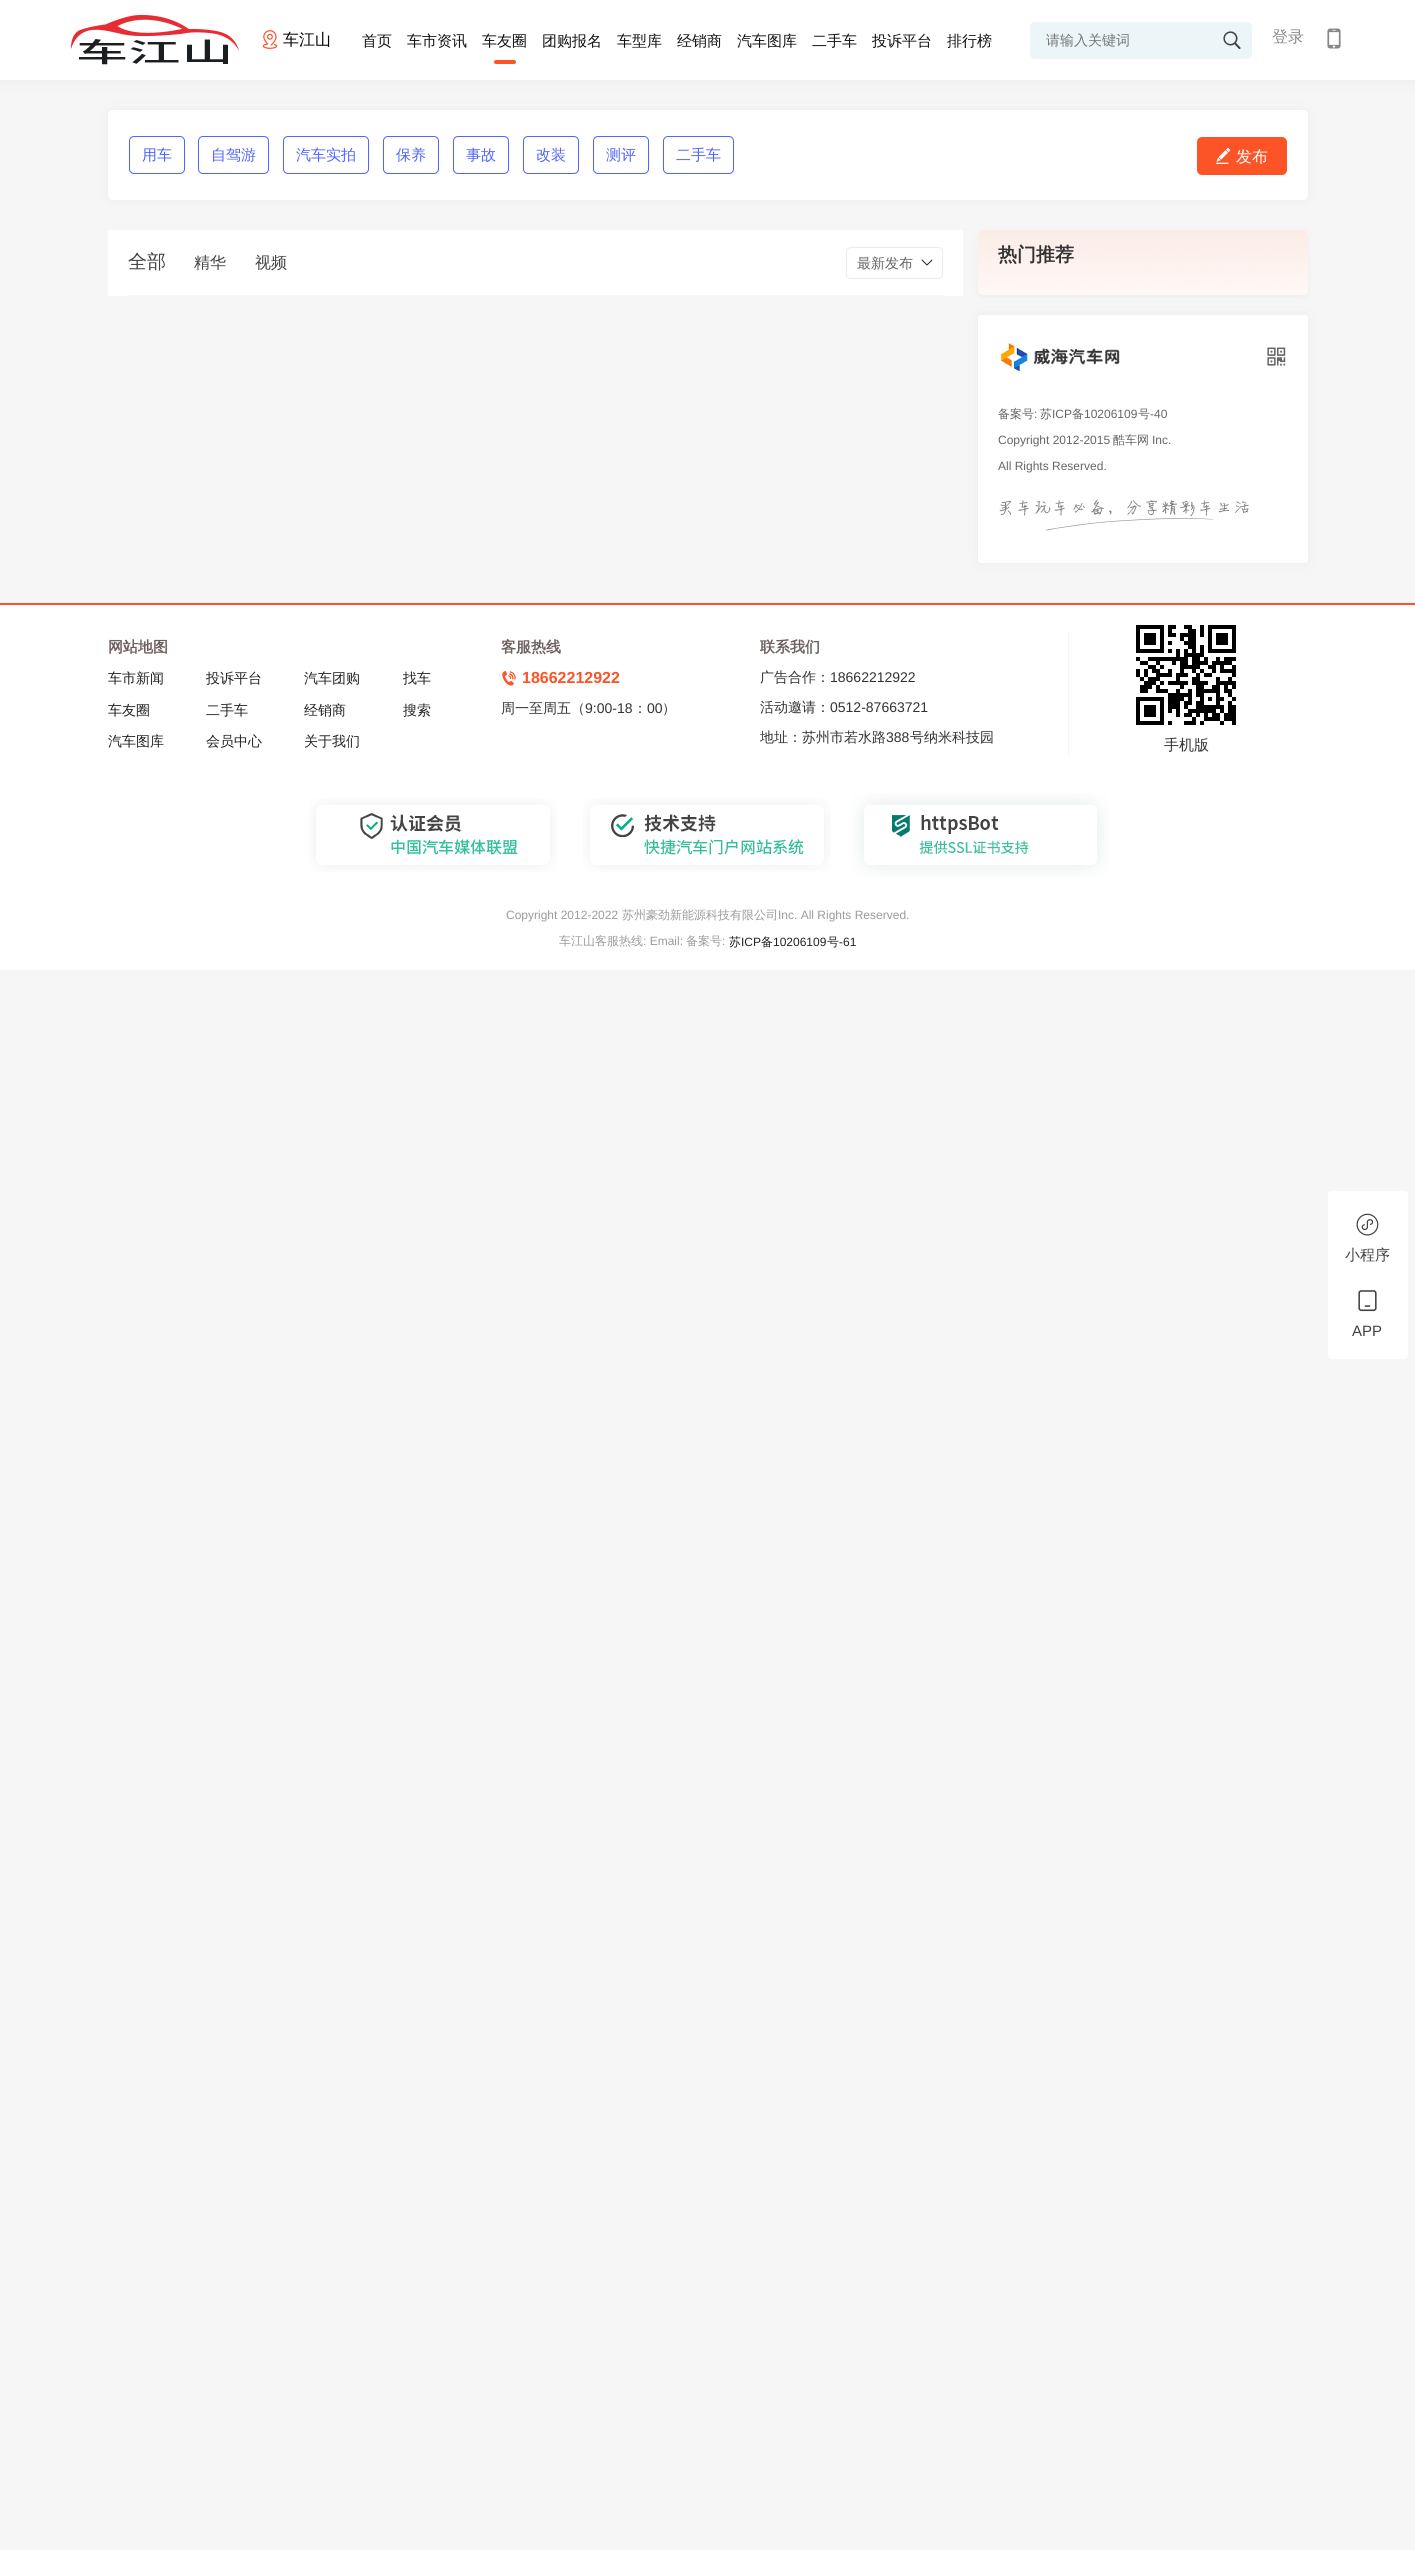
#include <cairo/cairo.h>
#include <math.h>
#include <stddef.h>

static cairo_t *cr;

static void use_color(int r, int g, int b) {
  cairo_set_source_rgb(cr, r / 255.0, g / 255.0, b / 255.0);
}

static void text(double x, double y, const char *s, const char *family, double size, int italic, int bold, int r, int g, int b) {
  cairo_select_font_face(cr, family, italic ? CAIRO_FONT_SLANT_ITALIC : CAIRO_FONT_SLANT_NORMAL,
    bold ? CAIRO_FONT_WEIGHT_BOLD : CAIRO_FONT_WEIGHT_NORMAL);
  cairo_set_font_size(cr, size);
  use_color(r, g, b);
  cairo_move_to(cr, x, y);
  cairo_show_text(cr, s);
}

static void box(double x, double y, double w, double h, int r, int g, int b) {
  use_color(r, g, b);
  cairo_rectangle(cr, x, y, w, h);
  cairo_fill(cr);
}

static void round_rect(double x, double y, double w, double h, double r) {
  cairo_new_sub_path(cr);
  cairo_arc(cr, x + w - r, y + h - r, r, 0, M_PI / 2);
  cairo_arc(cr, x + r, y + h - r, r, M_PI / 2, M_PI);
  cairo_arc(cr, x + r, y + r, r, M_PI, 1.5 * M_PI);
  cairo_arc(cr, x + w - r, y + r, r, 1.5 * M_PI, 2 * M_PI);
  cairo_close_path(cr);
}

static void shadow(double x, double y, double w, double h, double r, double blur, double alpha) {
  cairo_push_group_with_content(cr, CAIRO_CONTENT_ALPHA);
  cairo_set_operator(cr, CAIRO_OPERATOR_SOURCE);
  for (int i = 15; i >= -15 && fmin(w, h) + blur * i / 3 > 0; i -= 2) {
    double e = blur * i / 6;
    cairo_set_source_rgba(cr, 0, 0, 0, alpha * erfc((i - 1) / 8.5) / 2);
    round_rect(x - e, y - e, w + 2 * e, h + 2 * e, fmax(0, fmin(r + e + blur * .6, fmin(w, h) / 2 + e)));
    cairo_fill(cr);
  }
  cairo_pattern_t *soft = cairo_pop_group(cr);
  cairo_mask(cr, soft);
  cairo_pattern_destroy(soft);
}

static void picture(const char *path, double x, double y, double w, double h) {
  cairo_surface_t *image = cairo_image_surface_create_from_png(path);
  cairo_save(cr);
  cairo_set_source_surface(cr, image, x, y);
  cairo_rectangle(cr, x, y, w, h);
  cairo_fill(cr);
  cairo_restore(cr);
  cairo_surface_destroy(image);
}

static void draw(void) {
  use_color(246, 246, 246);
  cairo_paint(cr);
  use_color(224, 227, 234);
  shadow(0, 2, 1415, 80, 0, 5, 0.5);
  box(0, 0, 1415, 80, 255, 255, 255);
  picture("img_01.png", 71, 15, 168, 50);
  picture("img_02.png", 262, 30, 16, 19);
  use_color(252, 84, 39);
  round_rect(494, 60, 22, 4, 2);
  cairo_fill(cr);
  use_color(236, 246, 248);
  round_rect(1030.5, 22.5, 221, 36, 4.5);
  cairo_fill_preserve(cr);
  cairo_set_line_width(cr, 1);
  cairo_stroke(cr);
  picture("img_03.png", 1223, 31, 18, 18);
  picture("img_04.png", 1327, 28, 14, 21);
  use_color(224, 227, 234);
  shadow(108, 110, 1200, 90, 5, 5, 0.5);
  use_color(255, 255, 255);
  round_rect(108.5, 110.5, 1199, 89, 4.5);
  cairo_fill_preserve(cr);
  cairo_stroke(cr);
  round_rect(129.5, 136.5, 55, 37, 4.5);
  use_color(79, 100, 253);
  cairo_stroke(cr);
  round_rect(198.5, 136.5, 70, 37, 4.5);
  cairo_stroke(cr);
  round_rect(283.5, 136.5, 85, 37, 4.5);
  cairo_stroke(cr);
  round_rect(383.5, 136.5, 55, 37, 4.5);
  cairo_stroke(cr);
  round_rect(453.5, 136.5, 55, 37, 4.5);
  cairo_stroke(cr);
  round_rect(523.5, 136.5, 55, 37, 4.5);
  cairo_stroke(cr);
  round_rect(593.5, 136.5, 55, 37, 4.5);
  cairo_stroke(cr);
  round_rect(663.5, 136.5, 70, 37, 4.5);
  cairo_stroke(cr);
  use_color(252, 84, 39);
  round_rect(1197, 137, 90, 38, 5);
  cairo_fill(cr);
  picture("img_05.png", 1215, 148, 16, 16);
  box(108, 230, 855, 66, 255, 255, 255);
  box(128, 295, 815, 1, 246, 246, 246);
  round_rect(846.5, 247.5, 96, 31, 4.5);
  use_color(232, 235, 239);
  cairo_stroke(cr);
  picture("img_06.png", 921, 259, 12, 7);
  use_color(236, 236, 236);
  shadow(978, 232, 330, 65, 5, 2.5, 1);
  use_color(255, 255, 255);
  round_rect(978, 230, 330, 65, 5);
  cairo_fill(cr);
  picture("img_07.png", 978, 230, 330, 65);
  use_color(224, 227, 234);
  shadow(978, 315, 330, 248, 3, 5, 0.5);
  use_color(255, 255, 255);
  round_rect(978, 315, 330, 248, 3);
  cairo_fill(cr);
  picture("img_08.png", 1001, 343, 119, 28);
  picture("img_09.png", 1267, 347, 19, 19);
  picture("img_10.png", 999, 499, 250, 32);
  box(0, 605, 1415, 365, 255, 255, 255);
  box(0, 603, 1415, 2, 252, 84, 39);
  box(1068, 632, 1, 124, 245, 245, 245);
  picture("img_11.png", 502, 671, 14, 15);
  picture("img_12.png", 1136, 625, 100, 100);
  picture("img_13.png", 309, 798, 248, 74);
  picture("img_14.png", 583, 798, 248, 74);
  picture("img_15.png", 852, 793, 257, 84);
  use_color(255, 255, 255);
  round_rect(1328, 1191, 80, 168, 4);
  cairo_fill(cr);
  picture("img_16.png", 1356, 1213, 23, 23);
  picture("img_17.png", 1358, 1290, 19, 22);
  text(283, 45, "车江山", "WenQuanYi Zen Hei Medium", 16, 0, 0, 0, 0, 0);
  text(362, 46, "首页", "WenQuanYi Zen Hei Medium", 15, 0, 0, 17, 17, 17);
  text(407, 46, "车市资讯", "WenQuanYi Zen Hei Medium", 15, 0, 0, 17, 17, 17);
  text(482, 46, "车友圈", "WenQuanYi Zen Hei Medium", 15, 0, 0, 17, 17, 17);
  text(542, 46, "团购报名", "WenQuanYi Zen Hei Medium", 15, 0, 0, 17, 17, 17);
  text(617, 46, "车型库", "WenQuanYi Zen Hei Medium", 15, 0, 0, 17, 17, 17);
  text(677, 46, "经销商", "WenQuanYi Zen Hei Medium", 15, 0, 0, 17, 17, 17);
  text(737, 46, "汽车图库", "WenQuanYi Zen Hei Medium", 15, 0, 0, 17, 17, 17);
  text(812, 46, "二手车", "WenQuanYi Zen Hei Medium", 15, 0, 0, 17, 17, 17);
  text(872, 46, "投诉平台", "WenQuanYi Zen Hei Medium", 15, 0, 0, 17, 17, 17);
  text(947, 46, "排行榜", "WenQuanYi Zen Hei Medium", 15, 0, 0, 17, 17, 17);
  text(1046, 45, "请输入关键词", "WenQuanYi Zen Hei Medium", 14, 0, 0, 117, 117, 117);
  text(1272, 42, "登录", "WenQuanYi Zen Hei Medium", 16, 0, 0, 136, 136, 136);
  text(142, 160, "用车", "WenQuanYi Zen Hei Medium", 15, 0, 0, 79, 100, 253);
  text(211, 160, "自驾游", "WenQuanYi Zen Hei Medium", 15, 0, 0, 79, 100, 253);
  text(296, 160, "汽车实拍", "WenQuanYi Zen Hei Medium", 15, 0, 0, 79, 100, 253);
  text(396, 160, "保养", "WenQuanYi Zen Hei Medium", 15, 0, 0, 79, 100, 253);
  text(466, 160, "事故", "WenQuanYi Zen Hei Medium", 15, 0, 0, 79, 100, 253);
  text(536, 160, "改装", "WenQuanYi Zen Hei Medium", 15, 0, 0, 79, 100, 253);
  text(606, 160, "测评", "WenQuanYi Zen Hei Medium", 15, 0, 0, 79, 100, 253);
  text(676, 160, "二手车", "WenQuanYi Zen Hei Medium", 15, 0, 0, 79, 100, 253);
  text(1236, 162, "发布", "WenQuanYi Zen Hei Medium", 16, 0, 0, 255, 255, 255);
  text(128, 268, "全部", "WenQuanYi Zen Hei Medium", 19, 0, 0, 66, 66, 66);
  text(194, 268, "精华", "WenQuanYi Zen Hei Medium", 16, 0, 0, 66, 66, 66);
  text(255, 268, "视频", "WenQuanYi Zen Hei Medium", 16, 0, 0, 66, 66, 66);
  text(857, 268, "最新发布", "WenQuanYi Zen Hei Medium", 14, 0, 0, 102, 102, 102);
  text(998, 261, "热门推荐", "WenQuanYi Zen Hei", 19, 0, 1, 51, 51, 51);
  text(998, 418, "备案号", "WenQuanYi Zen Hei Medium", 12, 0, 0, 102, 102, 102);
  text(1034, 418, ":", "Liberation Sans", 12, 0, 0, 102, 102, 102);
  text(1040, 418, "苏", "WenQuanYi Zen Hei Medium", 12, 0, 0, 102, 102, 102);
  text(1052, 418, "ICP", "Liberation Sans", 12, 0, 0, 102, 102, 102);
  text(1072, 418, "备", "WenQuanYi Zen Hei Medium", 12, 0, 0, 102, 102, 102);
  text(1084, 418, "10206109", "Liberation Sans", 12, 0, 0, 102, 102, 102);
  text(1138, 418, "号", "WenQuanYi Zen Hei Medium", 12, 0, 0, 102, 102, 102);
  text(1150, 418, "-40", "Liberation Sans", 12, 0, 0, 102, 102, 102);
  text(998, 444, "Copyright 2012-2015", "Liberation Sans", 12, 0, 0, 102, 102, 102);
  text(1113, 444, "酷车网", "WenQuanYi Zen Hei Medium", 12, 0, 0, 102, 102, 102);
  text(1152, 444, "Inc.", "Liberation Sans", 12, 0, 0, 102, 102, 102);
  text(998, 470, "All Rights Reserved.", "Liberation Sans", 12, 0, 0, 102, 102, 102);
  text(108, 652, "网站地图", "WenQuanYi Zen Hei", 15, 0, 1, 109, 95, 95);
  text(108, 683, "车市新闻", "WenQuanYi Zen Hei Medium", 14, 0, 0, 34, 34, 34);
  text(206, 683, "投诉平台", "WenQuanYi Zen Hei Medium", 14, 0, 0, 34, 34, 34);
  text(304, 683, "汽车团购", "WenQuanYi Zen Hei Medium", 14, 0, 0, 34, 34, 34);
  text(403, 683, "找车", "WenQuanYi Zen Hei Medium", 14, 0, 0, 34, 34, 34);
  text(108, 715, "车友圈", "WenQuanYi Zen Hei Medium", 14, 0, 0, 34, 34, 34);
  text(206, 715, "二手车", "WenQuanYi Zen Hei Medium", 14, 0, 0, 34, 34, 34);
  text(304, 715, "经销商", "WenQuanYi Zen Hei Medium", 14, 0, 0, 34, 34, 34);
  text(403, 715, "搜索", "WenQuanYi Zen Hei Medium", 14, 0, 0, 34, 34, 34);
  text(108, 746, "汽车图库", "WenQuanYi Zen Hei Medium", 14, 0, 0, 34, 34, 34);
  text(206, 746, "会员中心", "WenQuanYi Zen Hei Medium", 14, 0, 0, 34, 34, 34);
  text(304, 746, "关于我们", "WenQuanYi Zen Hei Medium", 14, 0, 0, 34, 34, 34);
  text(501, 652, "客服热线", "WenQuanYi Zen Hei", 15, 0, 1, 109, 95, 95);
  text(522, 683, "18662212922", "Liberation Sans", 16, 0, 1, 252, 84, 39);
  text(501, 713, "周一至周五（", "WenQuanYi Zen Hei Medium", 14, 0, 0, 51, 51, 51);
  text(585, 713, "9:00-18", "Liberation Sans", 14, 0, 0, 51, 51, 51);
  text(633, 713, "：", "WenQuanYi Zen Hei Medium", 14, 0, 0, 51, 51, 51);
  text(647, 713, "00", "Liberation Sans", 14, 0, 0, 51, 51, 51);
  text(662, 713, "）", "WenQuanYi Zen Hei Medium", 14, 0, 0, 51, 51, 51);
  text(760, 652, "联系我们", "WenQuanYi Zen Hei", 15, 0, 1, 109, 95, 95);
  text(760, 682, "广告合作：", "WenQuanYi Zen Hei Medium", 14, 0, 0, 51, 51, 51);
  text(830, 682, "18662212922", "Liberation Sans", 14, 0, 0, 51, 51, 51);
  text(760, 712, "活动邀请：", "WenQuanYi Zen Hei Medium", 14, 0, 0, 51, 51, 51);
  text(830, 712, "0512-87663721", "Liberation Sans", 14, 0, 0, 51, 51, 51);
  text(760, 742, "地址：苏州市若水路", "WenQuanYi Zen Hei Medium", 14, 0, 0, 51, 51, 51);
  text(886, 742, "388", "Liberation Sans", 14, 0, 0, 51, 51, 51);
  text(910, 742, "号纳米科技园", "WenQuanYi Zen Hei Medium", 14, 0, 0, 51, 51, 51);
  text(1164, 750, "手机版", "WenQuanYi Zen Hei Medium", 15, 0, 0, 51, 51, 51);
  text(506, 919, "Copyright 2012-2022", "Liberation Sans", 12, 0, 0, 155, 155, 155);
  text(622, 919, "苏州豪劲新能源科技有限公司", "WenQuanYi Zen Hei Medium", 12, 0, 0, 155, 155, 155);
  text(778, 919, "Inc. All Rights Reserved.", "Liberation Sans", 12, 0, 0, 155, 155, 155);
  text(559, 945, "车江山客服热线", "WenQuanYi Zen Hei Medium", 12, 0, 0, 155, 155, 155);
  text(643, 945, ": Email:", "Liberation Sans", 12, 0, 0, 155, 155, 155);
  text(686, 945, "备案号", "WenQuanYi Zen Hei Medium", 12, 0, 0, 155, 155, 155);
  text(722, 945, ":", "Liberation Sans", 12, 0, 0, 155, 155, 155);
  text(729, 946, "苏", "WenQuanYi Zen Hei Medium", 12, 0, 0, 34, 34, 34);
  text(741, 946, "ICP", "Liberation Sans", 12, 0, 0, 34, 34, 34);
  text(761, 946, "备", "WenQuanYi Zen Hei Medium", 12, 0, 0, 34, 34, 34);
  text(773, 946, "10206109", "Liberation Sans", 12, 0, 0, 34, 34, 34);
  text(827, 946, "号", "WenQuanYi Zen Hei Medium", 12, 0, 0, 34, 34, 34);
  text(839, 946, "-61", "Liberation Sans", 12, 0, 0, 34, 34, 34);
  text(1345, 1260, "小程序", "WenQuanYi Zen Hei Medium", 15, 0, 0, 66, 66, 66);
  text(1352, 1336, "APP", "Liberation Sans", 15, 0, 0, 66, 66, 66);
}

int main(void) {
  cairo_surface_t *surface = cairo_image_surface_create(CAIRO_FORMAT_RGB24, 1415, 2550);
  cr = cairo_create(surface);
  cairo_font_options_t *options = cairo_font_options_create();
  cairo_font_options_set_hint_metrics(options, CAIRO_HINT_METRICS_OFF);
  cairo_font_options_set_hint_style(options, CAIRO_HINT_STYLE_NONE);
  cairo_set_font_options(cr, options);
  cairo_set_miter_limit(cr, 4);
  draw();
  cairo_surface_write_to_png(surface, "out.png");
  cairo_font_options_destroy(options);
  cairo_destroy(cr);
  cairo_surface_destroy(surface);
  return 0;
}
